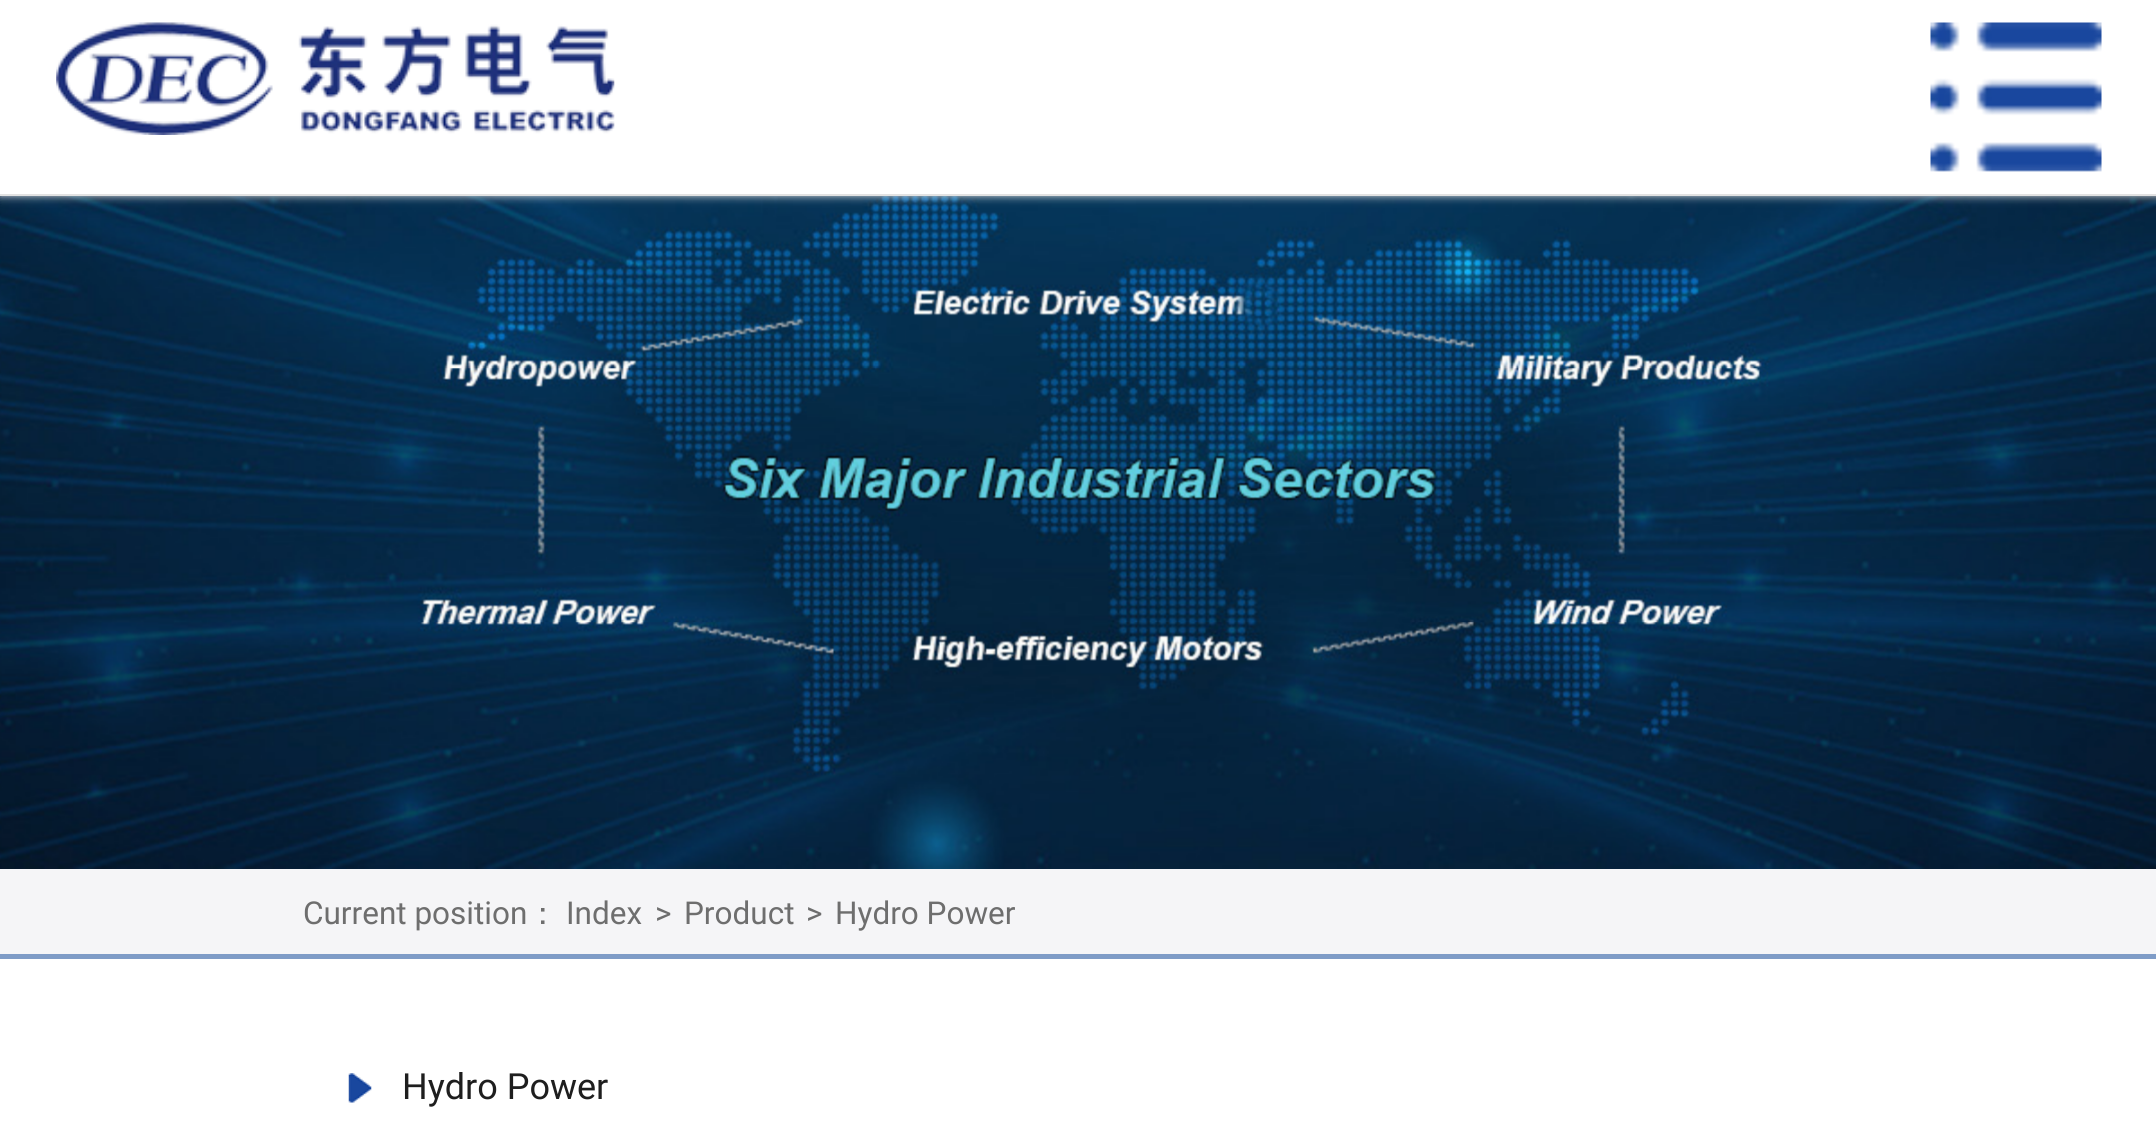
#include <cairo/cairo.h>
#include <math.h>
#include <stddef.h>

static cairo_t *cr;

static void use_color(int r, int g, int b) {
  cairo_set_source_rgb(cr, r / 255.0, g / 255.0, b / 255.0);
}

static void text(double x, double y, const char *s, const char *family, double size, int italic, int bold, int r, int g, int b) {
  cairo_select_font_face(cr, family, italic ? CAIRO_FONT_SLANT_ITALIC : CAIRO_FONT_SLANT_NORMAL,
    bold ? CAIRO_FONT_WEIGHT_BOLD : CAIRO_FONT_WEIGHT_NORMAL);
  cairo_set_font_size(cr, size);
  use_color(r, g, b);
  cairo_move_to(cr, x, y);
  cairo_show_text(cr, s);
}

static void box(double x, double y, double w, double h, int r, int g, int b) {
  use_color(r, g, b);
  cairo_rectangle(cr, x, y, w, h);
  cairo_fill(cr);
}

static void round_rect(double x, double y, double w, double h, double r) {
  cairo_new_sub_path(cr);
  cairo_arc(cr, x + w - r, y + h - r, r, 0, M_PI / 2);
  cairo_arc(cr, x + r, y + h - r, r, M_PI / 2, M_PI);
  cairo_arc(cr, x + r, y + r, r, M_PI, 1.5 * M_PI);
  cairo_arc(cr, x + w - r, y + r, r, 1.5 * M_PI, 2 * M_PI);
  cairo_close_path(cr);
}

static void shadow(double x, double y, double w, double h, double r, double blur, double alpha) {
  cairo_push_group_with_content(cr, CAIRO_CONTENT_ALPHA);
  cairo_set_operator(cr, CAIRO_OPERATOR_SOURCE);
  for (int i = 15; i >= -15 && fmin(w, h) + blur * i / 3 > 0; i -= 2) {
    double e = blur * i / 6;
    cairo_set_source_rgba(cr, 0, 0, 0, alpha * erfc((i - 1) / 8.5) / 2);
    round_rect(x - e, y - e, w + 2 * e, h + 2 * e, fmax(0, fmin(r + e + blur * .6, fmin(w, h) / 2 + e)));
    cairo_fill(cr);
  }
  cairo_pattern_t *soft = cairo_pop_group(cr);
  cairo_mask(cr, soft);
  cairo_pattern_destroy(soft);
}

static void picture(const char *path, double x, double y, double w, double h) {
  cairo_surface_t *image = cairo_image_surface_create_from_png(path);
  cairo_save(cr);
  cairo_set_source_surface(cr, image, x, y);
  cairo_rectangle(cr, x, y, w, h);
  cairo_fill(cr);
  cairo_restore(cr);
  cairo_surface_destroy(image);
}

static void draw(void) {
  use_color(255, 255, 255);
  cairo_paint(cr);
  picture("img_03.png", 0, 196, 2156, 673);
  use_color(226, 226, 226);
  shadow(0, 0, 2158, 196, 0, 4.5, 1);
  box(0, 0, 2156, 194, 255, 255, 255);
  box(0, 194, 2156, 2, 226, 226, 226);
  picture("img_01.png", 56, 22, 559, 113);
  picture("img_02.png", 1930, 22, 172, 150);
  box(0, 869, 2156, 85, 245, 245, 247);
  box(0, 954, 2156, 5, 127, 156, 199);
  picture("img_04.png", 348, 1073, 24, 30);
  text(303, 924, "Current position", "Roboto", 31.5, 0, 0, 110, 110, 110);
  text(527, 924, "：", "WenQuanYi Zen Hei Medium", 31.5, 0, 0, 110, 110, 110);
  text(566, 924, "Index", "Roboto", 31.5, 0, 0, 110, 110, 110);
  text(655, 924, ">", "Roboto", 31.5, 0, 0, 110, 110, 110);
  text(684, 924, "Product", "Roboto", 31.5, 0, 0, 110, 110, 110);
  text(806, 924, ">", "Roboto", 31.5, 0, 0, 110, 110, 110);
  text(835, 924, "Hydro Power", "Roboto", 31.5, 0, 0, 110, 110, 110);
  text(402, 1099, "Hydro Power", "Roboto", 36, 0, 0, 30, 30, 30);
}

int main(void) {
  cairo_surface_t *surface = cairo_image_surface_create(CAIRO_FORMAT_RGB24, 2156, 1127);
  cr = cairo_create(surface);
  cairo_font_options_t *options = cairo_font_options_create();
  cairo_font_options_set_hint_metrics(options, CAIRO_HINT_METRICS_OFF);
  cairo_font_options_set_hint_style(options, CAIRO_HINT_STYLE_NONE);
  cairo_set_font_options(cr, options);
  cairo_set_miter_limit(cr, 4);
  draw();
  cairo_surface_write_to_png(surface, "out.png");
  cairo_font_options_destroy(options);
  cairo_destroy(cr);
  cairo_surface_destroy(surface);
  return 0;
}
